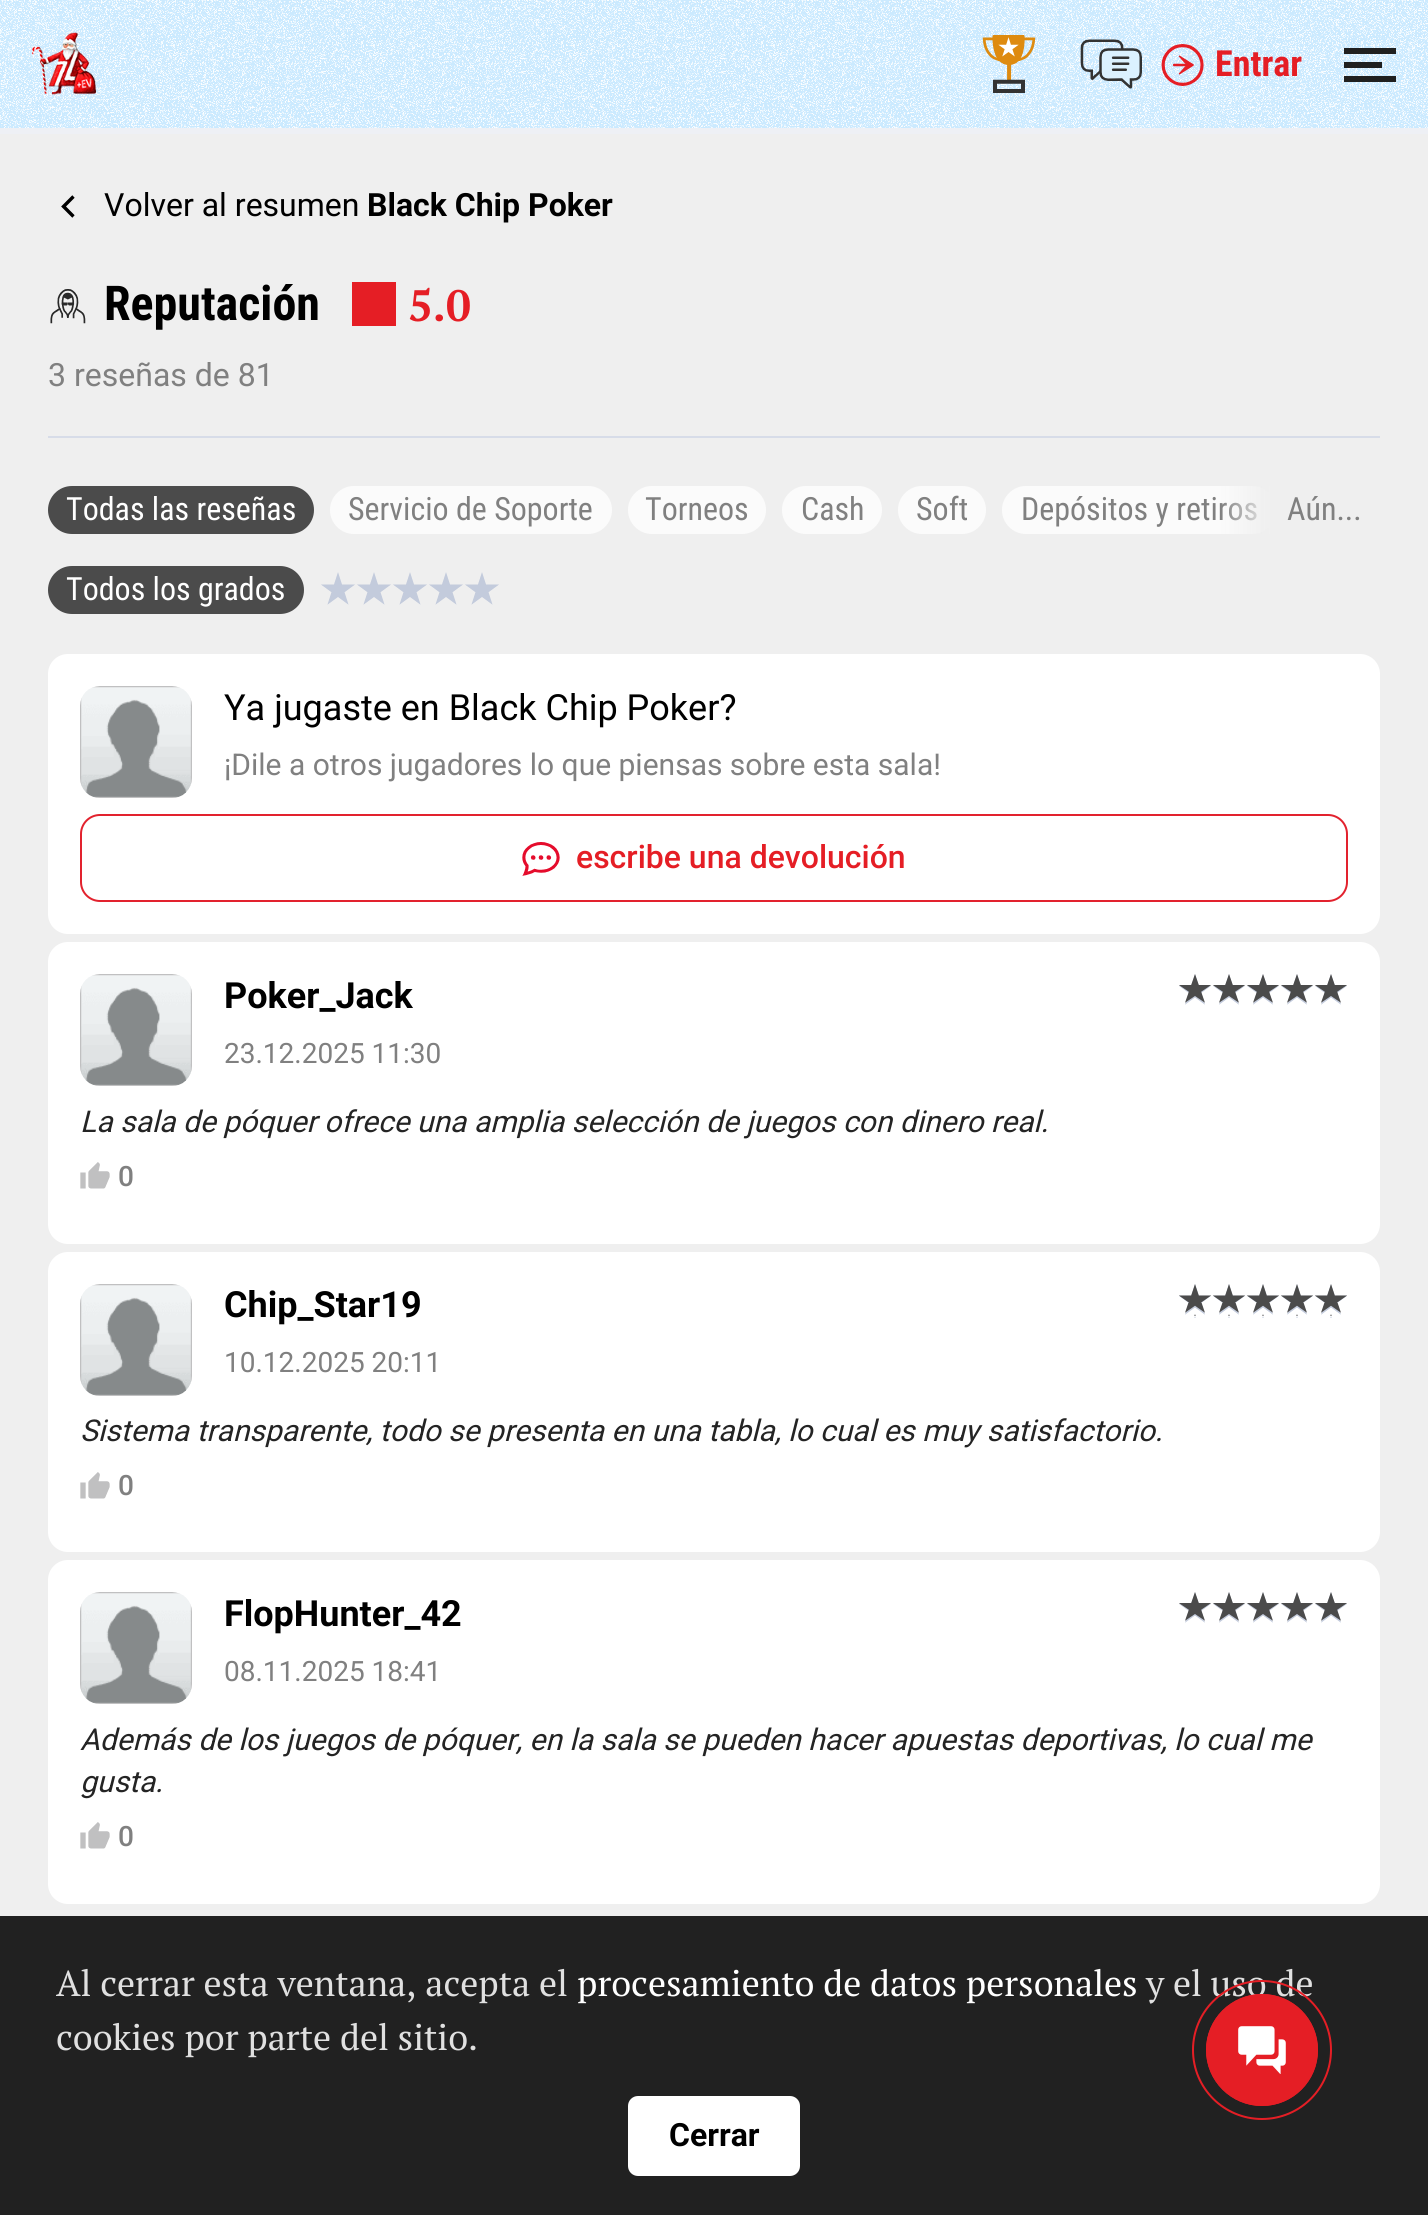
#include <cairo/cairo.h>
#include <math.h>
#include <stddef.h>

static cairo_t *cr;

static void use_color(int r, int g, int b) {
  cairo_set_source_rgb(cr, r / 255.0, g / 255.0, b / 255.0);
}

static void text(double x, double y, const char *s, const char *family, double size, int italic, int bold, int r, int g, int b) {
  cairo_select_font_face(cr, family, italic ? CAIRO_FONT_SLANT_ITALIC : CAIRO_FONT_SLANT_NORMAL,
    bold ? CAIRO_FONT_WEIGHT_BOLD : CAIRO_FONT_WEIGHT_NORMAL);
  cairo_set_font_size(cr, size);
  use_color(r, g, b);
  cairo_move_to(cr, x, y);
  cairo_show_text(cr, s);
}

static void box(double x, double y, double w, double h, int r, int g, int b) {
  use_color(r, g, b);
  cairo_rectangle(cr, x, y, w, h);
  cairo_fill(cr);
}

static void round_rect(double x, double y, double w, double h, double r) {
  cairo_new_sub_path(cr);
  cairo_arc(cr, x + w - r, y + h - r, r, 0, M_PI / 2);
  cairo_arc(cr, x + r, y + h - r, r, M_PI / 2, M_PI);
  cairo_arc(cr, x + r, y + r, r, M_PI, 1.5 * M_PI);
  cairo_arc(cr, x + w - r, y + r, r, 1.5 * M_PI, 2 * M_PI);
  cairo_close_path(cr);
}

static void picture(const char *path, double x, double y, double w, double h) {
  cairo_surface_t *image = cairo_image_surface_create_from_png(path);
  cairo_save(cr);
  cairo_set_source_surface(cr, image, x, y);
  cairo_rectangle(cr, x, y, w, h);
  cairo_fill(cr);
  cairo_restore(cr);
  cairo_surface_destroy(image);
}

static void draw(void) {
  cairo_pattern_t *gradient;
  use_color(255, 255, 255);
  cairo_paint(cr);
  box(0, 128, 1428, 6, 238, 240, 245);
  picture("img_01.png", 0, 0, 1428, 128);
  picture("img_02.png", 32, 32, 64, 63);
  picture("img_03.png", 982, 35, 54, 58);
  picture("img_04.png", 1080, 39, 62, 50);
  picture("img_05.png", 1161, 44, 43, 42);
  picture("img_06.png", 1344, 48, 52, 34);
  box(0, 134, 1428, 1782, 239, 239, 239);
  picture("img_07.png", 61, 195, 14, 23);
  box(48, 436, 1332, 2, 215, 220, 232);
  picture("img_08.png", 50, 289, 36, 35);
  box(352, 282, 44, 44, 229, 30, 37);
  use_color(75, 75, 75);
  round_rect(48, 486, 266, 48, 24);
  cairo_fill(cr);
  use_color(251, 251, 251);
  round_rect(330, 486, 282, 48, 24);
  cairo_fill(cr);
  round_rect(628, 486, 138, 48, 24);
  cairo_fill(cr);
  round_rect(782, 486, 100, 48, 24);
  cairo_fill(cr);
  round_rect(898, 486, 88, 48, 24);
  cairo_fill(cr);
  round_rect(1002, 486, 274, 48, 24);
  cairo_fill(cr);
  box(1270, 494, 6, 32, 239, 239, 239);
  use_color(75, 75, 75);
  round_rect(48, 566, 256, 48, 24);
  cairo_fill(cr);
  picture("img_09.png", 321, 572, 178, 33);
  use_color(255, 255, 255);
  round_rect(48, 654, 1332, 280, 20);
  cairo_fill(cr);
  picture("img_10.png", 80, 686, 112, 112);
  round_rect(81, 815, 1266, 86, 19);
  use_color(226, 34, 46);
  cairo_stroke(cr);
  picture("img_11.png", 522, 842, 38, 34);
  use_color(255, 255, 255);
  round_rect(48, 942, 1332, 302, 20);
  cairo_fill(cr);
  picture("img_10.png", 80, 974, 112, 112);
  picture("img_12.png", 1179, 974, 168, 31);
  picture("img_13.png", 1179, 974, 168, 29);
  picture("img_14.png", 80, 1162, 30, 27);
  round_rect(48, 1252, 1332, 300, 20);
  cairo_fill(cr);
  picture("img_15.png", 80, 1284, 112, 112);
  picture("img_16.png", 1179, 1284, 168, 34);
  picture("img_17.png", 1179, 1284, 168, 32);
  picture("img_14.png", 80, 1472, 30, 27);
  round_rect(48, 1560, 1332, 344, 20);
  cairo_fill(cr);
  picture("img_15.png", 80, 1592, 112, 112);
  picture("img_12.png", 1179, 1592, 168, 31);
  picture("img_13.png", 1179, 1592, 168, 29);
  picture("img_18.png", 80, 1822, 30, 27);
  box(0, 1916, 1428, 299, 33, 33, 33);
  use_color(255, 255, 255);
  round_rect(628, 2096, 172, 80, 10);
  cairo_fill(cr);
  text(1215, 76, "Entrar", "Roboto Condensed", 36, 0, 1, 229, 30, 37);
  text(104, 216, "Volver al resumen", "Roboto", 32, 0, 0, 0, 0, 0);
  text(367, 216, "Black Chip Poker", "Roboto", 32, 0, 1, 0, 0, 0);
  text(104, 320, "Reputación", "Roboto Condensed", 48, 0, 1, 0, 0, 0);
  text(408, 321, "5.0", "PT Serif", 44, 0, 1, 229, 30, 37);
  text(48, 386, "3 reseñas de 81", "Roboto", 32, 0, 0, 128, 128, 128);
  text(66, 520, "Todas las reseñas", "Roboto Condensed", 32, 0, 0, 255, 255, 255);
  text(348, 520, "Servicio de Soporte", "Roboto Condensed", 32, 0, 0, 128, 128, 128);
  text(645, 520, "Torneos", "Roboto Condensed", 32, 0, 0, 128, 128, 128);
  text(801, 520, "Cash", "Roboto Condensed", 32, 0, 0, 128, 128, 128);
  text(916, 520, "Soft", "Roboto Condensed", 32, 0, 0, 128, 128, 128);
  text(1021, 520, "Depósitos y retiros", "Roboto Condensed", 32, 0, 0, 128, 128, 128);
  gradient = cairo_pattern_create_linear(1270, 510, 1220, 510);
  cairo_pattern_add_color_stop_rgba(gradient, 0, 0.937, 0.937, 0.937, 1);
  cairo_pattern_add_color_stop_rgba(gradient, 1, 0.937, 0.937, 0.937, 0);
  cairo_set_source(cr, gradient);
  cairo_pattern_destroy(gradient);
  cairo_rectangle(cr, 1221, 486, 49, 48);
  cairo_fill(cr);
  text(1287, 520, "Aún...", "Roboto Condensed", 32, 0, 0, 128, 128, 128);
  text(66, 600, "Todos los grados", "Roboto Condensed", 32, 0, 0, 255, 255, 255);
  text(224, 720, "Ya jugaste en Black Chip Poker?", "Roboto", 36, 0, 0, 0, 0, 0);
  text(224, 775, "¡Dile a otros jugadores lo que piensas sobre esta sala!", "Roboto", 30, 0, 0, 128, 128, 128);
  text(576, 868, "escribe una devolución", "Roboto Medium", 32, 0, 0, 229, 30, 37);
  text(224, 1008, "Poker_Jack", "Roboto", 36, 0, 1, 0, 0, 0);
  text(224, 1063, "23.12.2025 11:30", "Roboto", 28, 0, 0, 128, 128, 128);
  text(80, 1132, "La sala de póquer ofrece una amplia selección de juegos con dinero real.", "Roboto", 30, 1, 0, 36, 36, 36);
  text(118, 1186, "0", "Roboto Medium", 28, 0, 0, 128, 128, 128);
  text(224, 1317, "Chip_Star19", "Roboto", 36, 0, 1, 0, 0, 0);
  text(224, 1372, "10.12.2025 20:11", "Roboto", 28, 0, 0, 128, 128, 128);
  text(80, 1441, "Sistema transparente, todo se presenta en una tabla, lo cual es muy satisfactorio.", "Roboto", 30, 1, 0, 36, 36, 36);
  text(118, 1495, "0", "Roboto Medium", 28, 0, 0, 128, 128, 128);
  text(224, 1626, "FlopHunter_42", "Roboto", 36, 0, 1, 0, 0, 0);
  text(224, 1681, "08.11.2025 18:41", "Roboto", 28, 0, 0, 128, 128, 128);
  text(80, 1750, "Además de los juegos de póquer, en la sala se pueden hacer apuestas deportivas, lo cual me", "Roboto", 30, 1, 0, 36, 36, 36);
  text(80, 1792, "gusta.", "Roboto", 30, 1, 0, 36, 36, 36);
  text(118, 1846, "0", "Roboto Medium", 28, 0, 0, 128, 128, 128);
  text(56, 1996, "Al cerrar esta ventana, acepta el", "PT Serif", 36, 0, 0, 224, 224, 224);
  text(577, 1996, "procesamiento de datos personales", "PT Serif", 36, 0, 0, 255, 255, 255);
  text(1146, 1996, "y el uso de", "PT Serif", 36, 0, 0, 224, 224, 224);
  text(56, 2050, "cookies por parte del sitio.", "PT Serif", 36, 0, 0, 224, 224, 224);
  text(669, 2146, "Cerrar", "Roboto", 32, 0, 1, 0, 0, 0);
  cairo_new_path(cr);
  cairo_arc(cr, 1262, 2050, 69, 0, 2 * M_PI);
  use_color(229, 30, 37);
  cairo_stroke(cr);
  cairo_arc(cr, 1262, 2050, 55, 0, 2 * M_PI);
  cairo_stroke(cr);
  cairo_arc(cr, 1262, 2050, 56, 0, 2 * M_PI);
  cairo_fill(cr);
  picture("img_19.png", 1238, 2026, 48, 48);
}

int main(void) {
  cairo_surface_t *surface = cairo_image_surface_create(CAIRO_FORMAT_RGB24, 1428, 2215);
  cr = cairo_create(surface);
  cairo_font_options_t *options = cairo_font_options_create();
  cairo_font_options_set_hint_metrics(options, CAIRO_HINT_METRICS_OFF);
  cairo_font_options_set_hint_style(options, CAIRO_HINT_STYLE_NONE);
  cairo_set_font_options(cr, options);
  cairo_set_miter_limit(cr, 4);
  draw();
  cairo_surface_write_to_png(surface, "out.png");
  cairo_font_options_destroy(options);
  cairo_destroy(cr);
  cairo_surface_destroy(surface);
  return 0;
}
